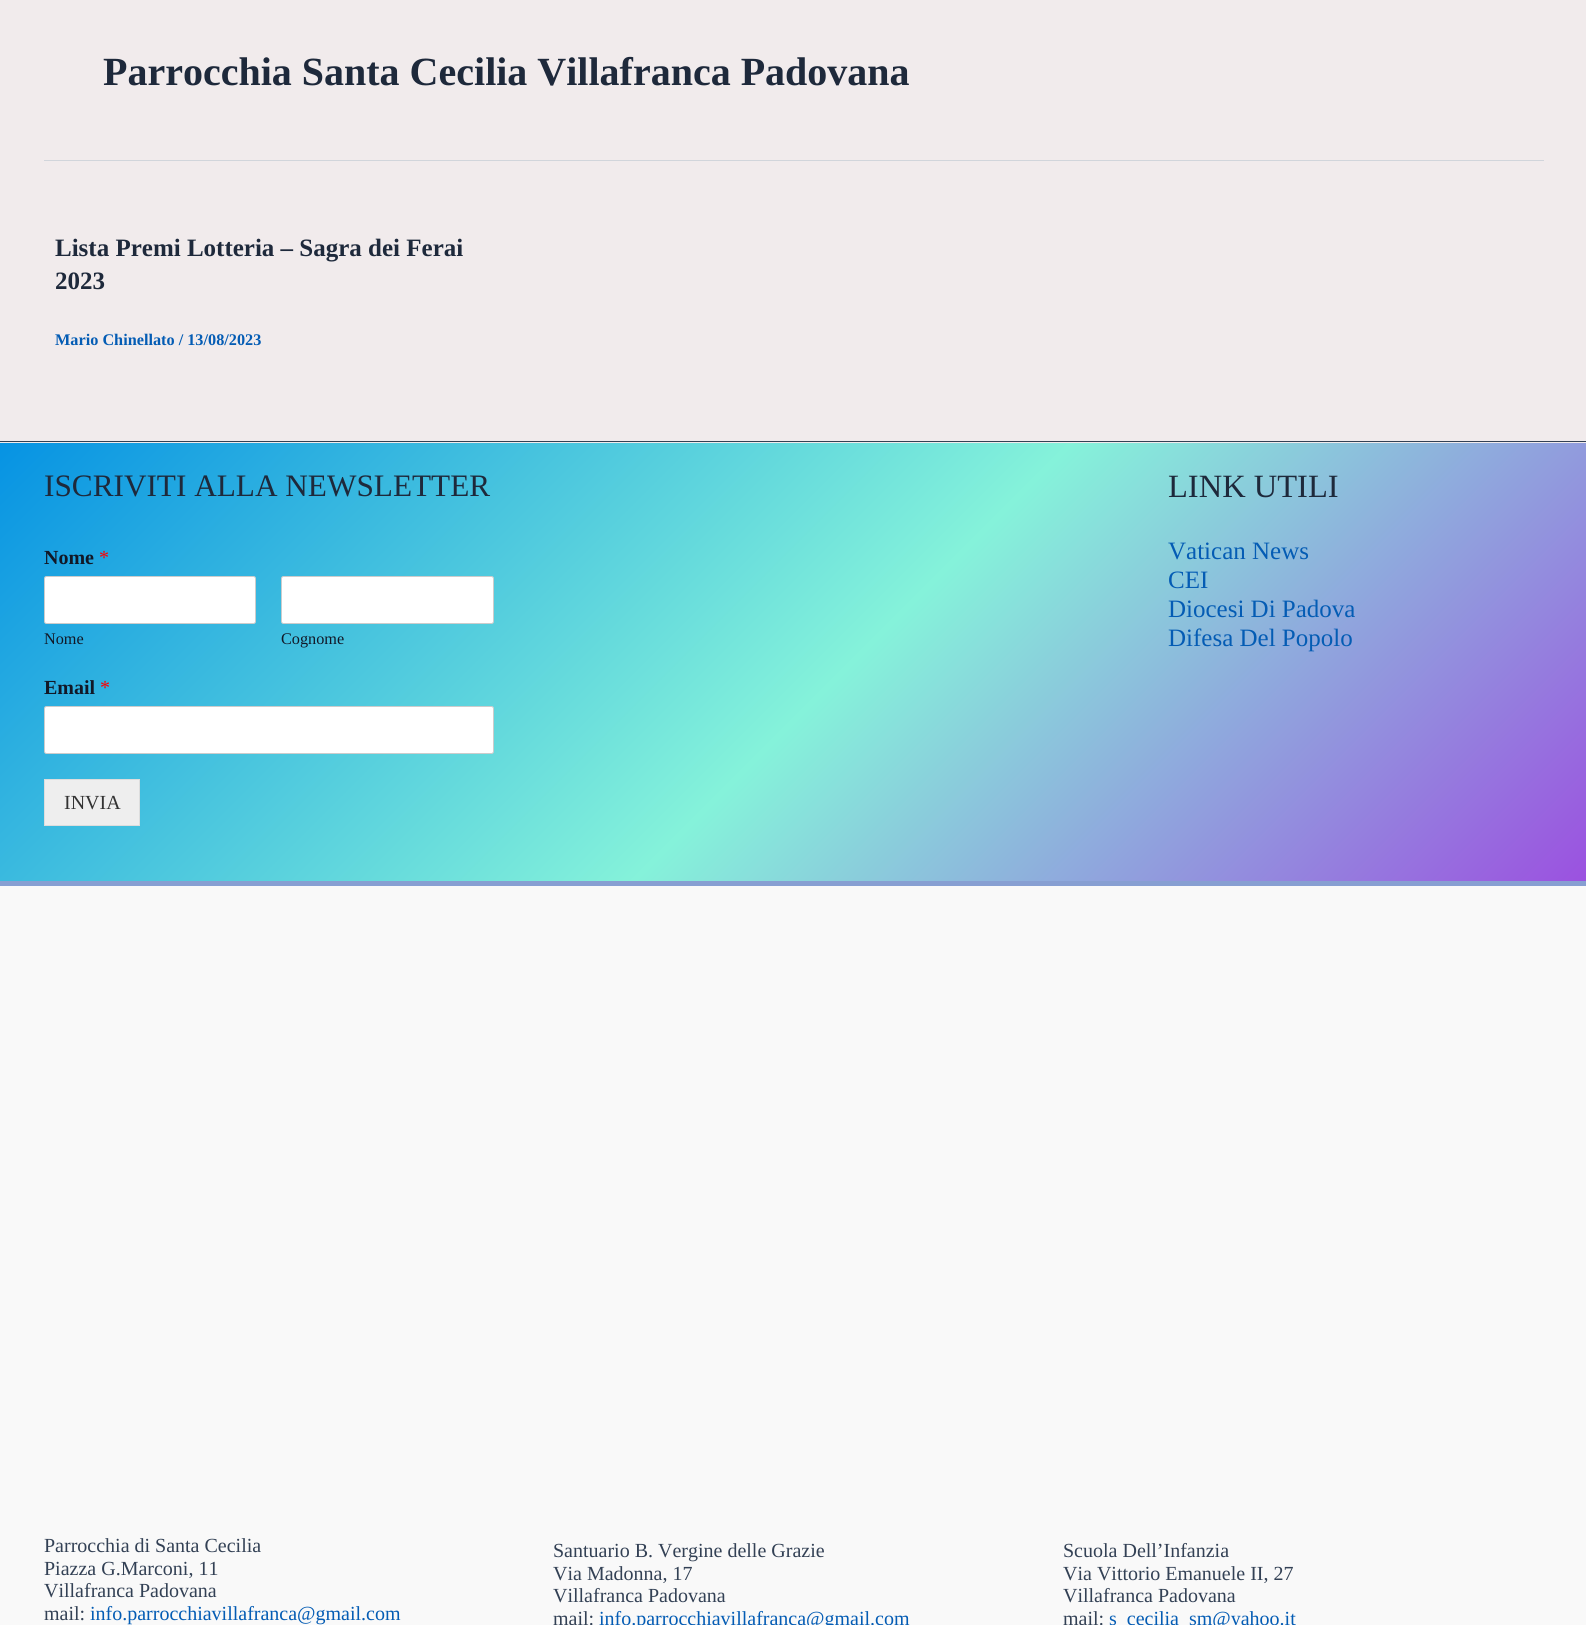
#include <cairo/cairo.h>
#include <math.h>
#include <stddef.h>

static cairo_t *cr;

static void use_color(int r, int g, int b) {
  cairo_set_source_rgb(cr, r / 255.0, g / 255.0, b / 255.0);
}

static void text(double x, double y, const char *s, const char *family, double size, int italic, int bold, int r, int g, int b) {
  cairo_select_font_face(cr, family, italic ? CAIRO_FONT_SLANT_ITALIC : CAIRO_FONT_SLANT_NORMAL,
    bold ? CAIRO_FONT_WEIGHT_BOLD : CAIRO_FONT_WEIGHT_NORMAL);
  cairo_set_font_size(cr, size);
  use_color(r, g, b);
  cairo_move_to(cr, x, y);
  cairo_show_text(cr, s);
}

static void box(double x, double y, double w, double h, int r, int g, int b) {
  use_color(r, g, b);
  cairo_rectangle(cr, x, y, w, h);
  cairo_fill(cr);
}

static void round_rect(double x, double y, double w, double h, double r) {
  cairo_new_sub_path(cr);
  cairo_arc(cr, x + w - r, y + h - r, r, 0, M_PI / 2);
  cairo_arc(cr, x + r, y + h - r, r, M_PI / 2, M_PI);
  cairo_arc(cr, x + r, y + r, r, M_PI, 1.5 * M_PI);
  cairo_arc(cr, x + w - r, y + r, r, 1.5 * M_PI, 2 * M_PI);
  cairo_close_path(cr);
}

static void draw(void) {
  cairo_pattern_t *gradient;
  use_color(241, 235, 236);
  cairo_paint(cr);
  box(44, 160, 1500, 1, 209, 213, 219);
  gradient = cairo_pattern_create_linear(287, 156, 1299, 1168);
  cairo_pattern_add_color_stop_rgba(gradient, 0, 0.024, 0.576, 0.89, 1);
  cairo_pattern_add_color_stop_rgba(gradient, 0.53, 0.522, 0.949, 0.855, 1);
  cairo_pattern_add_color_stop_rgba(gradient, 1, 0.608, 0.318, 0.878, 1);
  cairo_set_source(cr, gradient);
  cairo_pattern_destroy(gradient);
  cairo_rectangle(cr, 0, 443, 1586, 438);
  cairo_fill(cr);
  box(0, 441, 1586, 1, 51, 65, 85);
  use_color(255, 255, 255);
  round_rect(44.5, 576.5, 211, 47, 2);
  cairo_fill_preserve(cr);
  use_color(204, 204, 204);
  cairo_set_line_width(cr, 1);
  cairo_stroke(cr);
  use_color(255, 255, 255);
  round_rect(281.5, 576.5, 212, 47, 2);
  cairo_fill_preserve(cr);
  use_color(204, 204, 204);
  cairo_stroke(cr);
  use_color(255, 255, 255);
  round_rect(44.5, 706.5, 449, 47, 2);
  cairo_fill_preserve(cr);
  use_color(204, 204, 204);
  cairo_stroke(cr);
  use_color(238, 238, 238);
  cairo_rectangle(cr, 44.5, 779.5, 95, 46);
  cairo_fill_preserve(cr);
  use_color(221, 221, 221);
  cairo_stroke(cr);
  box(0, 886, 1586, 739, 249, 249, 249);
  box(0, 881, 1586, 5, 135, 159, 210);
  text(103, 85, "Parrocchia Santa Cecilia Villafranca Padovana", "Liberation Serif", 40, 0, 1, 30, 41, 59);
  text(55, 256, "Lista Premi Lotteria – Sagra dei Ferai", "Liberation Serif", 25, 0, 1, 30, 41, 59);
  text(55, 289, "2023", "Liberation Serif", 25, 0, 1, 30, 41, 59);
  text(55, 345, "Mario Chinellato / 13/08/2023", "Liberation Serif", 16.25, 0, 1, 4, 92, 180);
  text(44, 496, "ISCRIVITI ALLA NEWSLETTER", "Liberation Serif", 31.25, 0, 0, 30, 41, 59);
  text(44, 564, "Nome", "Liberation Serif", 20, 0, 1, 17, 24, 39);
  text(99, 564, "*", "Liberation Serif", 20, 0, 0, 255, 0, 0);
  text(44, 644, "Nome", "Liberation Serif", 16.25, 0, 0, 17, 24, 39);
  text(281, 644, "Cognome", "Liberation Serif", 16.25, 0, 0, 17, 24, 39);
  text(44, 694, "Email", "Liberation Serif", 20, 0, 1, 17, 24, 39);
  text(100, 694, "*", "Liberation Serif", 20, 0, 0, 255, 0, 0);
  text(64, 809, "INVIA", "Liberation Serif", 20, 0, 0, 51, 51, 51);
  text(1168, 497, "LINK UTILI", "Liberation Serif", 32.5, 0, 0, 30, 41, 59);
  text(1168, 559, "Vatican News", "Liberation Serif", 25, 0, 0, 4, 92, 180);
  text(1168, 588, "CEI", "Liberation Serif", 25, 0, 0, 4, 92, 180);
  text(1168, 617, "Diocesi Di Padova", "Liberation Serif", 25, 0, 0, 4, 92, 180);
  text(1168, 646, "Difesa Del Popolo", "Liberation Serif", 25, 0, 0, 4, 92, 180);
  text(44, 1552, "Parrocchia di Santa Cecilia", "Liberation Serif", 20, 0, 0, 51, 65, 85);
  text(44, 1575, "Piazza G.Marconi, 11", "Liberation Serif", 20, 0, 0, 51, 65, 85);
  text(44, 1597, "Villafranca Padovana", "Liberation Serif", 20, 0, 0, 51, 65, 85);
  text(44, 1620, "mail:", "Liberation Serif", 20, 0, 0, 51, 65, 85);
  text(90, 1620, "info.parrocchiavillafranca@gmail.com", "Liberation Serif", 20, 0, 0, 4, 92, 180);
  text(553, 1557, "Santuario B. Vergine delle Grazie", "Liberation Serif", 20, 0, 0, 51, 65, 85);
  text(553, 1580, "Via Madonna, 17", "Liberation Serif", 20, 0, 0, 51, 65, 85);
  text(553, 1602, "Villafranca Padovana", "Liberation Serif", 20, 0, 0, 51, 65, 85);
  text(553, 1625, "mail:", "Liberation Serif", 20, 0, 0, 51, 65, 85);
  text(599, 1625, "info.parrocchiavillafranca@gmail.com", "Liberation Serif", 20, 0, 0, 4, 92, 180);
  text(1063, 1557, "Scuola Dell’Infanzia", "Liberation Serif", 20, 0, 0, 51, 65, 85);
  text(1063, 1580, "Via Vittorio Emanuele II, 27", "Liberation Serif", 20, 0, 0, 51, 65, 85);
  text(1063, 1602, "Villafranca Padovana", "Liberation Serif", 20, 0, 0, 51, 65, 85);
  text(1063, 1625, "mail:", "Liberation Serif", 20, 0, 0, 51, 65, 85);
  text(1109, 1625, "s_cecilia_sm@yahoo.it", "Liberation Serif", 20, 0, 0, 4, 92, 180);
}

int main(void) {
  cairo_surface_t *surface = cairo_image_surface_create(CAIRO_FORMAT_RGB24, 1586, 1625);
  cr = cairo_create(surface);
  cairo_font_options_t *options = cairo_font_options_create();
  cairo_font_options_set_hint_metrics(options, CAIRO_HINT_METRICS_OFF);
  cairo_font_options_set_hint_style(options, CAIRO_HINT_STYLE_NONE);
  cairo_set_font_options(cr, options);
  cairo_set_miter_limit(cr, 4);
  draw();
  cairo_surface_write_to_png(surface, "out.png");
  cairo_font_options_destroy(options);
  cairo_destroy(cr);
  cairo_surface_destroy(surface);
  return 0;
}
